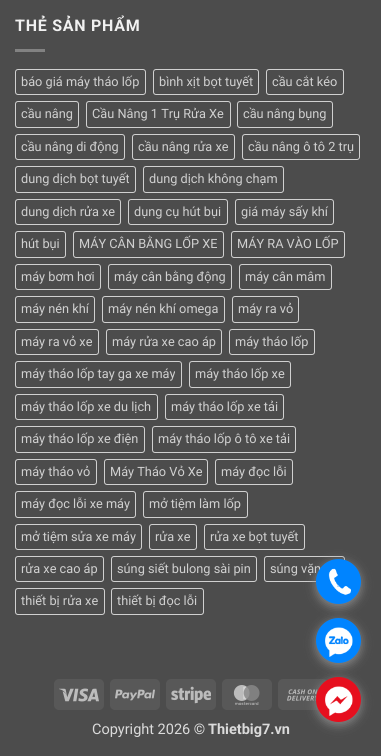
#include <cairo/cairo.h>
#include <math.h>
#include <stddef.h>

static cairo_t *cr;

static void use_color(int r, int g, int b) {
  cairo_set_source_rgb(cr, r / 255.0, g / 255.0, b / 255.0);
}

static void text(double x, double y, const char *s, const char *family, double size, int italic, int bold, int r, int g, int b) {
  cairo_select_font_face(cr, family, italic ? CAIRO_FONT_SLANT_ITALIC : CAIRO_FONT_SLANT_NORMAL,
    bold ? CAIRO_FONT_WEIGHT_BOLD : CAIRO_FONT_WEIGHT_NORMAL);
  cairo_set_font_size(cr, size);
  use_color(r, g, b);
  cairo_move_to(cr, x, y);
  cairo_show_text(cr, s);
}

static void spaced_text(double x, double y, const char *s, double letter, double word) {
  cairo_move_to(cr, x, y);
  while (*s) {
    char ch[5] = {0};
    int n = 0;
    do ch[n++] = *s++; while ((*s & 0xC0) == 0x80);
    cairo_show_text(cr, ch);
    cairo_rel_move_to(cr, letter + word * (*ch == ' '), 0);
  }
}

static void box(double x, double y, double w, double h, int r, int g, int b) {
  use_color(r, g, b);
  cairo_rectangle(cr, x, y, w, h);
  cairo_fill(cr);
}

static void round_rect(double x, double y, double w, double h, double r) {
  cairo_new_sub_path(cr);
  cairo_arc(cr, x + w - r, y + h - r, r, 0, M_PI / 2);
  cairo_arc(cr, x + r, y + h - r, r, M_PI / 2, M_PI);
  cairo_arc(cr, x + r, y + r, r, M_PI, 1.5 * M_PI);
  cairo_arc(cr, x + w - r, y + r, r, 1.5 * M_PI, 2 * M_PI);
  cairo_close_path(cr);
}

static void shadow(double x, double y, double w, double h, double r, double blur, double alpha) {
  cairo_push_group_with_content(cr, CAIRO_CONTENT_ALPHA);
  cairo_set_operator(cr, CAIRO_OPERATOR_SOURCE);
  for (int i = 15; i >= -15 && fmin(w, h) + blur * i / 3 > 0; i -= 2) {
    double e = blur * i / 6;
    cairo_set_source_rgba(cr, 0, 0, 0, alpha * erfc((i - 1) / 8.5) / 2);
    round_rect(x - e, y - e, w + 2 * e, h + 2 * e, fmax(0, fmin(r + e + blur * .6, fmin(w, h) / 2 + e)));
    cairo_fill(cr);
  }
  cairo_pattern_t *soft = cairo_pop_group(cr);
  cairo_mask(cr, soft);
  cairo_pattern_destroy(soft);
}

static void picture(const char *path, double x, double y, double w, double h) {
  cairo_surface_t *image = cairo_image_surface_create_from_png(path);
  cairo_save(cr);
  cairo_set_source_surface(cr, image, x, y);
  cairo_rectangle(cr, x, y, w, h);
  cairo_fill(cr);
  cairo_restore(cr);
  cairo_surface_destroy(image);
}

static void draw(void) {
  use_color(76, 76, 76);
  cairo_paint(cr);
  box(15, 49, 30, 3, 130, 130, 130);
  round_rect(15.5, 69.5, 130, 25, 2.5);
  use_color(208, 208, 208);
  cairo_set_line_width(cr, 1);
  cairo_stroke(cr);
  round_rect(153.5, 69.5, 105, 25, 2.5);
  cairo_stroke(cr);
  round_rect(266.5, 69.5, 77, 25, 2.5);
  cairo_stroke(cr);
  round_rect(15.5, 101.5, 63, 26, 2.5);
  cairo_stroke(cr);
  round_rect(86.5, 101.5, 144, 26, 2.5);
  cairo_stroke(cr);
  round_rect(237.5, 101.5, 95, 26, 2.5);
  cairo_stroke(cr);
  round_rect(15.5, 134.5, 109, 25, 2.5);
  cairo_stroke(cr);
  round_rect(132.5, 134.5, 102, 25, 2.5);
  cairo_stroke(cr);
  round_rect(242.5, 134.5, 117, 25, 2.5);
  cairo_stroke(cr);
  round_rect(15.5, 166.5, 120, 26, 2.5);
  cairo_stroke(cr);
  round_rect(143.5, 166.5, 140, 26, 2.5);
  cairo_stroke(cr);
  round_rect(15.5, 199.5, 105, 25, 2.5);
  cairo_stroke(cr);
  round_rect(128.5, 199.5, 99, 25, 2.5);
  cairo_stroke(cr);
  round_rect(235.5, 199.5, 98, 25, 2.5);
  cairo_stroke(cr);
  round_rect(15.5, 231.5, 50, 26, 2.5);
  cairo_stroke(cr);
  round_rect(73.5, 231.5, 150, 26, 2.5);
  cairo_stroke(cr);
  round_rect(231.5, 231.5, 113, 26, 2.5);
  cairo_stroke(cr);
  round_rect(15.5, 264.5, 85, 25, 2.5);
  cairo_stroke(cr);
  round_rect(108.5, 264.5, 123, 25, 2.5);
  cairo_stroke(cr);
  round_rect(239.5, 264.5, 92, 25, 2.5);
  cairo_stroke(cr);
  round_rect(15.5, 296.5, 79, 26, 2.5);
  cairo_stroke(cr);
  round_rect(102.5, 296.5, 122, 26, 2.5);
  cairo_stroke(cr);
  round_rect(232.5, 296.5, 66, 26, 2.5);
  cairo_stroke(cr);
  round_rect(15.5, 329.5, 83, 25, 2.5);
  cairo_stroke(cr);
  round_rect(106.5, 329.5, 115, 25, 2.5);
  cairo_stroke(cr);
  round_rect(229.5, 329.5, 85, 25, 2.5);
  cairo_stroke(cr);
  round_rect(15.5, 361.5, 166, 26, 2.5);
  cairo_stroke(cr);
  round_rect(189.5, 361.5, 101, 26, 2.5);
  cairo_stroke(cr);
  round_rect(15.5, 394.5, 142, 25, 2.5);
  cairo_stroke(cr);
  round_rect(165.5, 394.5, 118, 25, 2.5);
  cairo_stroke(cr);
  round_rect(15.5, 426.5, 129, 26, 2.5);
  cairo_stroke(cr);
  round_rect(152.5, 426.5, 143, 26, 2.5);
  cairo_stroke(cr);
  round_rect(15.5, 459.5, 81, 25, 2.5);
  cairo_stroke(cr);
  round_rect(104.5, 459.5, 103, 25, 2.5);
  cairo_stroke(cr);
  round_rect(215.5, 459.5, 77, 25, 2.5);
  cairo_stroke(cr);
  round_rect(15.5, 491.5, 120, 26, 2.5);
  cairo_stroke(cr);
  round_rect(143.5, 491.5, 104, 26, 2.5);
  cairo_stroke(cr);
  round_rect(15.5, 524.5, 126, 25, 2.5);
  cairo_stroke(cr);
  round_rect(149.5, 524.5, 47, 25, 2.5);
  cairo_stroke(cr);
  round_rect(204.5, 524.5, 100, 25, 2.5);
  cairo_stroke(cr);
  round_rect(15.5, 556.5, 88, 25, 2.5);
  cairo_stroke(cr);
  round_rect(111.5, 556.5, 145, 25, 2.5);
  cairo_stroke(cr);
  round_rect(264.5, 556.5, 80, 25, 2.5);
  cairo_stroke(cr);
  round_rect(15.5, 588.5, 89, 26, 2.5);
  cairo_stroke(cr);
  round_rect(111.5, 588.5, 92, 26, 2.5);
  cairo_stroke(cr);
  use_color(88, 88, 88);
  round_rect(54, 679, 50, 31, 5);
  cairo_fill(cr);
  picture("img_01.png", 59, 688, 40, 14);
  round_rect(110, 679, 50, 31, 5);
  cairo_fill(cr);
  picture("img_02.png", 115, 689, 40, 12);
  round_rect(166, 679, 50, 31, 5);
  cairo_fill(cr);
  picture("img_03.png", 171, 686, 40, 18);
  round_rect(222, 679, 50, 31, 5);
  cairo_fill(cr);
  picture("img_04.png", 233, 685, 27, 20);
  round_rect(278, 679, 50, 31, 5);
  cairo_fill(cr);
  picture("img_05.png", 287, 689, 31, 12);
  use_color(136, 136, 136);
  shadow(316, 562, 45, 45, 22.5, 5, 1);
  shadow(316, 621, 45, 45, 22.5, 5, 1);
  use_color(0, 132, 255);
  cairo_arc(cr, 338.5, 640.5, 22.5, 0, 2 * M_PI);
  cairo_fill(cr);
  picture("img_07.png", 325, 627, 28, 30);
  use_color(136, 136, 136);
  shadow(316, 680, 45, 45, 22.5, 5, 1);
  use_color(230, 15, 30);
  cairo_arc(cr, 338.5, 699.5, 22.5, 0, 2 * M_PI);
  cairo_fill(cr);
  picture("img_08.png", 325, 686, 28, 30);
  cairo_select_font_face(cr, "Roboto", CAIRO_FONT_SLANT_NORMAL, CAIRO_FONT_WEIGHT_BOLD);
  cairo_set_font_size(cr, 16);
  use_color(241, 241, 241);
  spaced_text(15, 31, "THẺ SẢN PHẨM", 0.75, 0);
  text(21, 86, "báo giá máy tháo lốp", "Roboto", 12.75, 0, 0, 208, 208, 208);
  text(159, 86, "bình xịt bọt tuyết", "Roboto", 12.75, 0, 0, 208, 208, 208);
  text(272, 86, "cầu cắt kéo", "Roboto", 12.75, 0, 0, 208, 208, 208);
  text(21, 118, "cầu nâng", "Roboto", 12.75, 0, 0, 208, 208, 208);
  text(92, 118, "Cầu Nâng 1 Trụ Rửa Xe", "Roboto", 12.75, 0, 0, 208, 208, 208);
  text(243, 118, "cầu nâng bụng", "Roboto", 12.75, 0, 0, 208, 208, 208);
  text(21, 151, "cầu nâng di động", "Roboto", 12.75, 0, 0, 208, 208, 208);
  text(138, 151, "cầu nâng rửa xe", "Roboto", 12.75, 0, 0, 208, 208, 208);
  text(248, 151, "cầu nâng ô tô 2 trụ", "Roboto", 12.75, 0, 0, 208, 208, 208);
  text(21, 183, "dung dịch bọt tuyết", "Roboto", 12.75, 0, 0, 208, 208, 208);
  text(149, 183, "dung dịch không chạm", "Roboto", 12.75, 0, 0, 208, 208, 208);
  text(21, 216, "dung dịch rửa xe", "Roboto", 12.75, 0, 0, 208, 208, 208);
  text(134, 216, "dụng cụ hút bụi", "Roboto", 12.75, 0, 0, 208, 208, 208);
  text(241, 216, "giá máy sấy khí", "Roboto", 12.75, 0, 0, 208, 208, 208);
  text(21, 248, "hút bụi", "Roboto", 12.75, 0, 0, 208, 208, 208);
  text(79, 248, "MÁY CÂN BẰNG LỐP XE", "Roboto", 12.75, 0, 0, 208, 208, 208);
  text(237, 248, "MÁY RA VÀO LỐP", "Roboto", 12.75, 0, 0, 208, 208, 208);
  text(21, 281, "máy bơm hơi", "Roboto", 12.75, 0, 0, 208, 208, 208);
  text(114, 281, "máy cân bằng động", "Roboto", 12.75, 0, 0, 208, 208, 208);
  text(245, 281, "máy cân mâm", "Roboto", 12.75, 0, 0, 208, 208, 208);
  text(21, 313, "máy nén khí", "Roboto", 12.75, 0, 0, 208, 208, 208);
  text(108, 313, "máy nén khí omega", "Roboto", 12.75, 0, 0, 208, 208, 208);
  text(238, 313, "máy ra vỏ", "Roboto", 12.75, 0, 0, 208, 208, 208);
  text(21, 346, "máy ra vỏ xe", "Roboto", 12.75, 0, 0, 208, 208, 208);
  text(112, 346, "máy rửa xe cao áp", "Roboto", 12.75, 0, 0, 208, 208, 208);
  text(235, 346, "máy tháo lốp", "Roboto", 12.75, 0, 0, 208, 208, 208);
  text(21, 378, "máy tháo lốp tay ga xe máy", "Roboto", 12.75, 0, 0, 208, 208, 208);
  text(195, 378, "máy tháo lốp xe", "Roboto", 12.75, 0, 0, 208, 208, 208);
  text(21, 411, "máy tháo lốp xe du lịch", "Roboto", 12.75, 0, 0, 208, 208, 208);
  text(171, 411, "máy tháo lốp xe tải", "Roboto", 12.75, 0, 0, 208, 208, 208);
  text(21, 443, "máy tháo lốp xe điện", "Roboto", 12.75, 0, 0, 208, 208, 208);
  text(158, 443, "máy tháo lốp ô tô xe tải", "Roboto", 12.75, 0, 0, 208, 208, 208);
  text(21, 476, "máy tháo vỏ", "Roboto", 12.75, 0, 0, 208, 208, 208);
  text(110, 476, "Máy Tháo Vỏ Xe", "Roboto", 12.75, 0, 0, 208, 208, 208);
  text(221, 476, "máy đọc lỗi", "Roboto", 12.75, 0, 0, 208, 208, 208);
  text(21, 508, "máy đọc lỗi xe máy", "Roboto", 12.75, 0, 0, 208, 208, 208);
  text(149, 508, "mở tiệm làm lốp", "Roboto", 12.75, 0, 0, 208, 208, 208);
  text(21, 541, "mở tiệm sửa xe máy", "Roboto", 12.75, 0, 0, 208, 208, 208);
  text(155, 541, "rửa xe", "Roboto", 12.75, 0, 0, 208, 208, 208);
  text(210, 541, "rửa xe bọt tuyết", "Roboto", 12.75, 0, 0, 208, 208, 208);
  text(21, 573, "rửa xe cao áp", "Roboto", 12.75, 0, 0, 208, 208, 208);
  text(117, 573, "súng siết bulong sài pin", "Roboto", 12.75, 0, 0, 208, 208, 208);
  text(270, 573, "súng vặn", "Roboto", 12.75, 0, 0, 208, 208, 208);
  text(21, 605, "thiết bị rửa xe", "Roboto", 12.75, 0, 0, 208, 208, 208);
  text(117, 605, "thiết bị đọc lỗi", "Roboto", 12.75, 0, 0, 208, 208, 208);
  text(92, 734, "Copyright 2026 ©", "Roboto", 14.5, 0, 0, 219, 219, 219);
  text(208, 734, "Thietbig7.vn", "Roboto", 14.5, 0, 1, 219, 219, 219);
  use_color(0, 132, 255);
  cairo_new_path(cr);
  cairo_arc(cr, 338.5, 581.5, 22.5, 0, 2 * M_PI);
  cairo_fill(cr);
  picture("img_06.png", 328, 568, 23, 27);
  text(336, 587, ".", "Roboto", 16, 0, 0, 164, 211, 254);
}

int main(void) {
  cairo_surface_t *surface = cairo_image_surface_create(CAIRO_FORMAT_RGB24, 381, 756);
  cr = cairo_create(surface);
  cairo_font_options_t *options = cairo_font_options_create();
  cairo_font_options_set_hint_metrics(options, CAIRO_HINT_METRICS_OFF);
  cairo_font_options_set_hint_style(options, CAIRO_HINT_STYLE_NONE);
  cairo_set_font_options(cr, options);
  cairo_set_miter_limit(cr, 4);
  draw();
  cairo_surface_write_to_png(surface, "out.png");
  cairo_font_options_destroy(options);
  cairo_destroy(cr);
  cairo_surface_destroy(surface);
  return 0;
}
